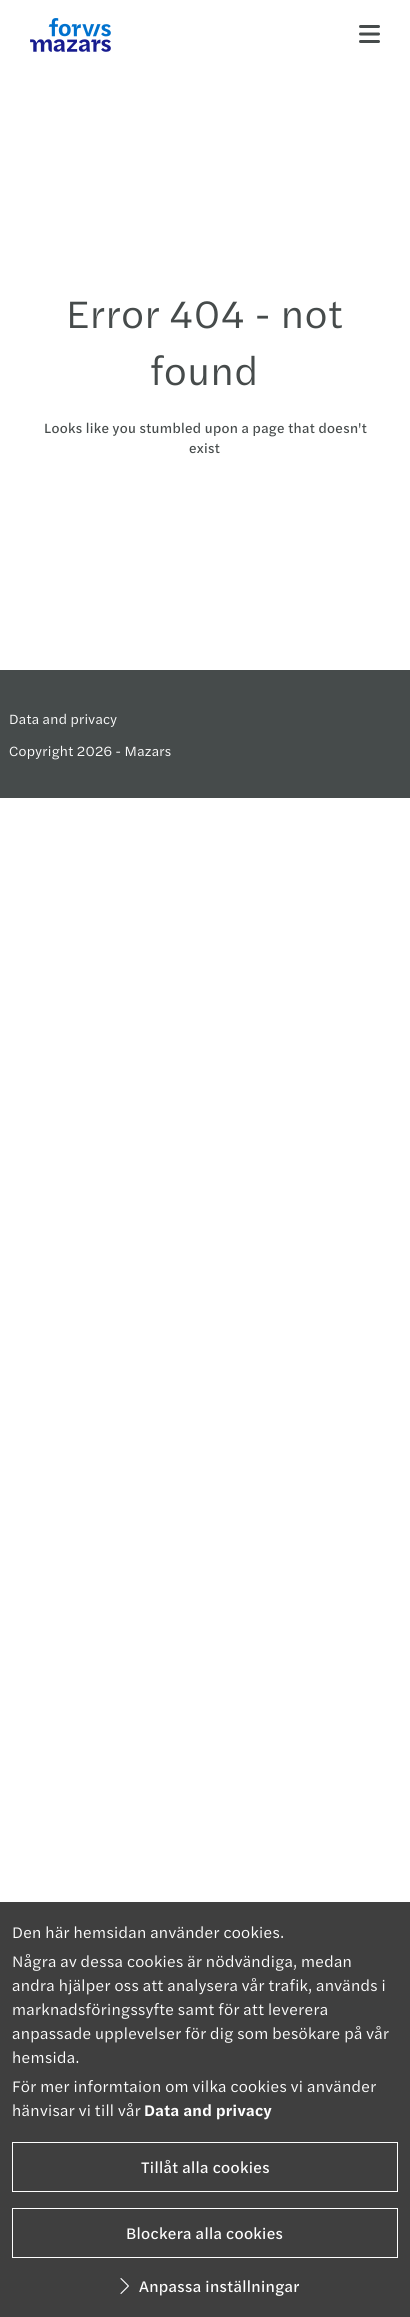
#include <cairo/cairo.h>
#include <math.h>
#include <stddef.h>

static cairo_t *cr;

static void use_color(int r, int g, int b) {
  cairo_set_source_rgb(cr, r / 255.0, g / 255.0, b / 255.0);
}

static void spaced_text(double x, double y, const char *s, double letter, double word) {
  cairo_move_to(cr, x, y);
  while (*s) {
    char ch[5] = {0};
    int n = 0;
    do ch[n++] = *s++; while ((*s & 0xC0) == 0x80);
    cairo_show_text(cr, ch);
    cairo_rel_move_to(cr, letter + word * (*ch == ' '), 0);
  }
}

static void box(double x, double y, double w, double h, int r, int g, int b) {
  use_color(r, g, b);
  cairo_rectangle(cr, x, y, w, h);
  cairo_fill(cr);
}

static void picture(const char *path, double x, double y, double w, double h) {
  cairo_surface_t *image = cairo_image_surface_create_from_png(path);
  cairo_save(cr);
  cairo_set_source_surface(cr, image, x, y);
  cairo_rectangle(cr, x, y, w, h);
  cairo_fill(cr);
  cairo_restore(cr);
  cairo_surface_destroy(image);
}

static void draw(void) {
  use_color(255, 255, 255);
  cairo_paint(cr);
  picture("img_01.png", 30, 18, 81, 34);
  picture("img_02.png", 359, 25, 21, 18);
  box(0, 670, 410, 128, 70, 75, 75);
  box(0, 1902, 410, 415, 63, 63, 63);
  cairo_rectangle(cr, 12.5, 2142.5, 385, 49);
  use_color(255, 255, 255);
  cairo_set_line_width(cr, 1);
  cairo_stroke(cr);
  cairo_rectangle(cr, 12.5, 2208.5, 385, 49);
  cairo_stroke(cr);
  picture("img_03.png", 120, 2278, 9, 16);
  cairo_select_font_face(cr, "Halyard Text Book", CAIRO_FONT_SLANT_NORMAL, CAIRO_FONT_WEIGHT_NORMAL);
  cairo_set_font_size(cr, 40);
  use_color(70, 75, 75);
  spaced_text(66, 328, "Error 404 - not", 0.75, 0);
  spaced_text(150, 385, "found", 0.75, 0);
  cairo_select_font_face(cr, "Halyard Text", CAIRO_FONT_SLANT_NORMAL, CAIRO_FONT_WEIGHT_NORMAL);
  cairo_set_font_size(cr, 14);
  spaced_text(44, 433, "Looks like you stumbled upon a page that doesn't", 0.3, 0);
  spaced_text(189, 453, "exist", 0.3, 0);
  cairo_select_font_face(cr, "Halyard Text Book", CAIRO_FONT_SLANT_NORMAL, CAIRO_FONT_WEIGHT_NORMAL);
  use_color(255, 255, 255);
  spaced_text(9, 724, "Data and privacy", 0.3, 0);
  spaced_text(9, 756, "Copyright 2026 - Mazars", 0.3, 0);
  cairo_set_font_size(cr, 16);
  spaced_text(12, 1938, "Den här hemsidan använder cookies.", 0.32, 0);
  spaced_text(12, 1967, "Några av dessa cookies är nödvändiga, medan", 0.32, 0);
  spaced_text(12, 1991, "andra hjälper oss att analysera vår trafik, används i", 0.32, 0);
  spaced_text(12, 2015, "marknadsföringssyfte samt för att leverera", 0.32, 0);
  spaced_text(12, 2039, "anpassade upplevelser för dig som besökare på vår", 0.32, 0);
  spaced_text(12, 2063, "hemsida.", 0.32, 0);
  spaced_text(12, 2092, "För mer informtaion om vilka cookies vi använder", 0.32, 0);
  spaced_text(12, 2116, "hänvisar vi till vår", 0.32, 0);
  cairo_select_font_face(cr, "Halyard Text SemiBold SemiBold", CAIRO_FONT_SLANT_NORMAL, CAIRO_FONT_WEIGHT_NORMAL);
  spaced_text(144, 2116, "Data and privacy", 0.32, 0);
  cairo_select_font_face(cr, "Halyard Text", CAIRO_FONT_SLANT_NORMAL, CAIRO_FONT_WEIGHT_NORMAL);
  spaced_text(141, 2173, "Tillåt alla cookies", 0.32, 0);
  spaced_text(126, 2239, "Blockera alla cookies", 0.32, 0);
  spaced_text(139, 2292, "Anpassa inställningar", 0.32, 0);
}

int main(void) {
  cairo_surface_t *surface = cairo_image_surface_create(CAIRO_FORMAT_RGB24, 410, 2317);
  cr = cairo_create(surface);
  cairo_font_options_t *options = cairo_font_options_create();
  cairo_font_options_set_hint_metrics(options, CAIRO_HINT_METRICS_OFF);
  cairo_font_options_set_hint_style(options, CAIRO_HINT_STYLE_NONE);
  cairo_set_font_options(cr, options);
  cairo_set_miter_limit(cr, 4);
  draw();
  cairo_surface_write_to_png(surface, "out.png");
  cairo_font_options_destroy(options);
  cairo_destroy(cr);
  cairo_surface_destroy(surface);
  return 0;
}
